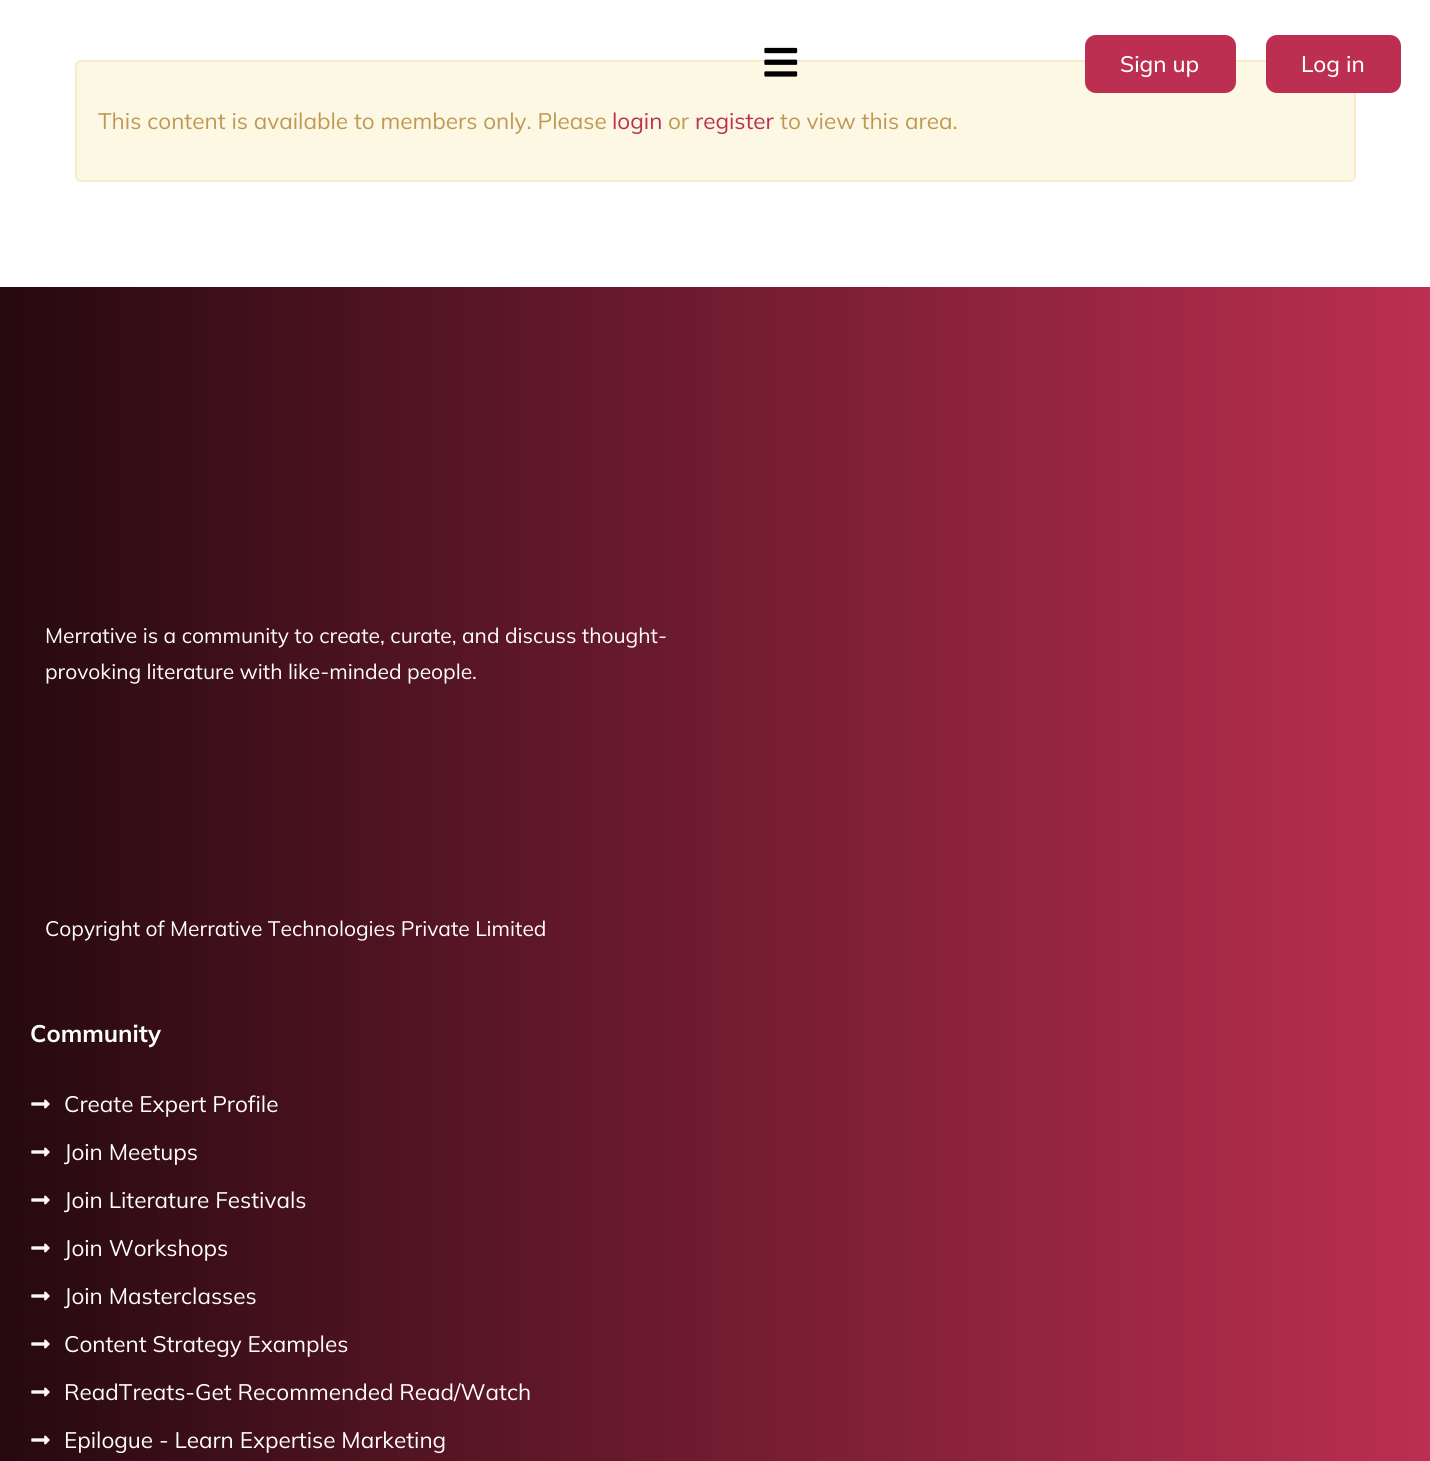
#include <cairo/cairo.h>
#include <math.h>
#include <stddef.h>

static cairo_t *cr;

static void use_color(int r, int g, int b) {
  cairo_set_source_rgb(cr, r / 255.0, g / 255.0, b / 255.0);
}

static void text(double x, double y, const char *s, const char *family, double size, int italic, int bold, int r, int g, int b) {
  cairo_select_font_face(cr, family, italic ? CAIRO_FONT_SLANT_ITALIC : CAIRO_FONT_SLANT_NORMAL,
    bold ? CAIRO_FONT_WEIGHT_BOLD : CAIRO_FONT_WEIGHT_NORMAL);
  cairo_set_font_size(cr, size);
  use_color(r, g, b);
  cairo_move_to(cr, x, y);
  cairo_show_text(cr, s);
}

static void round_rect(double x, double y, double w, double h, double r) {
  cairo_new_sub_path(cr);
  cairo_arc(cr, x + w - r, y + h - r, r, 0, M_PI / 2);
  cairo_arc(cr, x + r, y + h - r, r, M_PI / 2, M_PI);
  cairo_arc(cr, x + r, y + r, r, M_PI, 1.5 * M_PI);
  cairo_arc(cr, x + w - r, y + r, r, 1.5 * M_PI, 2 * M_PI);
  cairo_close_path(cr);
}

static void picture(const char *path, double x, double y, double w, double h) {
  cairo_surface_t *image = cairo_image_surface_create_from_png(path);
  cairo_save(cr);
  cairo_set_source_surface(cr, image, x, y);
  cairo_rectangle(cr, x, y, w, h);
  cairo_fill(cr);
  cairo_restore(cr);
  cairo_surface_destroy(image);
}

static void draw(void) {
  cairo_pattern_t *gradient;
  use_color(255, 255, 255);
  cairo_paint(cr);
  use_color(252, 248, 227);
  round_rect(76, 61, 1279, 120, 5);
  cairo_fill_preserve(cr);
  use_color(250, 235, 204);
  cairo_stroke(cr);
  picture("img_01.png", 764, 47, 34, 30);
  use_color(188, 47, 80);
  round_rect(1085, 35, 151, 58, 11);
  cairo_fill(cr);
  round_rect(1266, 35, 135, 58, 11);
  cairo_fill(cr);
  gradient = cairo_pattern_create_linear(0, 1214, 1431, 1214);
  cairo_pattern_add_color_stop_rgba(gradient, 0, 0.149, 0.035, 0.063, 1);
  cairo_pattern_add_color_stop_rgba(gradient, 1, 0.737, 0.184, 0.314, 1);
  cairo_set_source(cr, gradient);
  cairo_pattern_destroy(gradient);
  cairo_rectangle(cr, 0, 287, 1430, 150);
  cairo_fill(cr);
  gradient = cairo_pattern_create_linear(0, 1289, 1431, 1289);
  cairo_pattern_add_color_stop_rgba(gradient, 0, 0.149, 0.035, 0.063, 1);
  cairo_pattern_add_color_stop_rgba(gradient, 1, 0.737, 0.184, 0.314, 1);
  cairo_set_source(cr, gradient);
  cairo_pattern_destroy(gradient);
  cairo_rectangle(cr, 0, 437, 1430, 1024);
  cairo_fill(cr);
  picture("img_02.png", 31, 1099, 19, 10);
  picture("img_02.png", 31, 1147, 19, 10);
  picture("img_02.png", 31, 1195, 19, 10);
  picture("img_02.png", 31, 1243, 19, 10);
  picture("img_02.png", 31, 1291, 19, 10);
  picture("img_02.png", 31, 1339, 19, 10);
  picture("img_02.png", 31, 1387, 19, 10);
  picture("img_02.png", 31, 1435, 19, 10);
  text(1120, 72, "Sign up", "Mulish Medium", 22.5, 0, 0, 255, 255, 255);
  text(1301, 72, "Log in", "Mulish Medium", 22.5, 0, 0, 255, 255, 255);
  text(98, 129, "This content is available to members only. Please", "Mulish", 22.5, 0, 0, 192, 152, 83);
  text(612, 129, "login", "Mulish", 22.5, 0, 0, 188, 47, 80);
  text(668, 129, "or", "Mulish", 22.5, 0, 0, 192, 152, 83);
  text(695, 129, "register", "Mulish", 22.5, 0, 0, 188, 47, 80);
  text(780, 129, "to view this area.", "Mulish", 22.5, 0, 0, 192, 152, 83);
  text(45, 643, "Merrative is a community to create, curate, and discuss thought-", "Mulish", 21, 0, 0, 255, 255, 255);
  text(45, 679, "provoking literature with like-minded people.", "Mulish", 21, 0, 0, 255, 255, 255);
  text(45, 936, "Copyright of Merrative Technologies Private Limited", "Mulish", 21, 0, 0, 255, 255, 255);
  text(30, 1042, "Community", "Mulish", 24, 0, 1, 255, 255, 255);
  text(64, 1112, "Create Expert Profile", "Mulish", 22.5, 0, 0, 255, 255, 255);
  text(64, 1160, "Join Meetups", "Mulish", 22.5, 0, 0, 255, 255, 255);
  text(64, 1208, "Join Literature Festivals", "Mulish", 22.5, 0, 0, 255, 255, 255);
  text(64, 1256, "Join Workshops", "Mulish", 22.5, 0, 0, 255, 255, 255);
  text(64, 1304, "Join Masterclasses", "Mulish", 22.5, 0, 0, 255, 255, 255);
  text(64, 1352, "Content Strategy Examples", "Mulish", 22.5, 0, 0, 255, 255, 255);
  text(64, 1400, "ReadTreats-Get Recommended Read/Watch", "Mulish", 22.5, 0, 0, 255, 255, 255);
  text(64, 1448, "Epilogue - Learn Expertise Marketing", "Mulish", 22.5, 0, 0, 255, 255, 255);
}

int main(void) {
  cairo_surface_t *surface = cairo_image_surface_create(CAIRO_FORMAT_RGB24, 1430, 1461);
  cr = cairo_create(surface);
  cairo_font_options_t *options = cairo_font_options_create();
  cairo_font_options_set_hint_metrics(options, CAIRO_HINT_METRICS_OFF);
  cairo_font_options_set_hint_style(options, CAIRO_HINT_STYLE_NONE);
  cairo_set_font_options(cr, options);
  cairo_set_miter_limit(cr, 4);
  draw();
  cairo_surface_write_to_png(surface, "out.png");
  cairo_font_options_destroy(options);
  cairo_destroy(cr);
  cairo_surface_destroy(surface);
  return 0;
}
